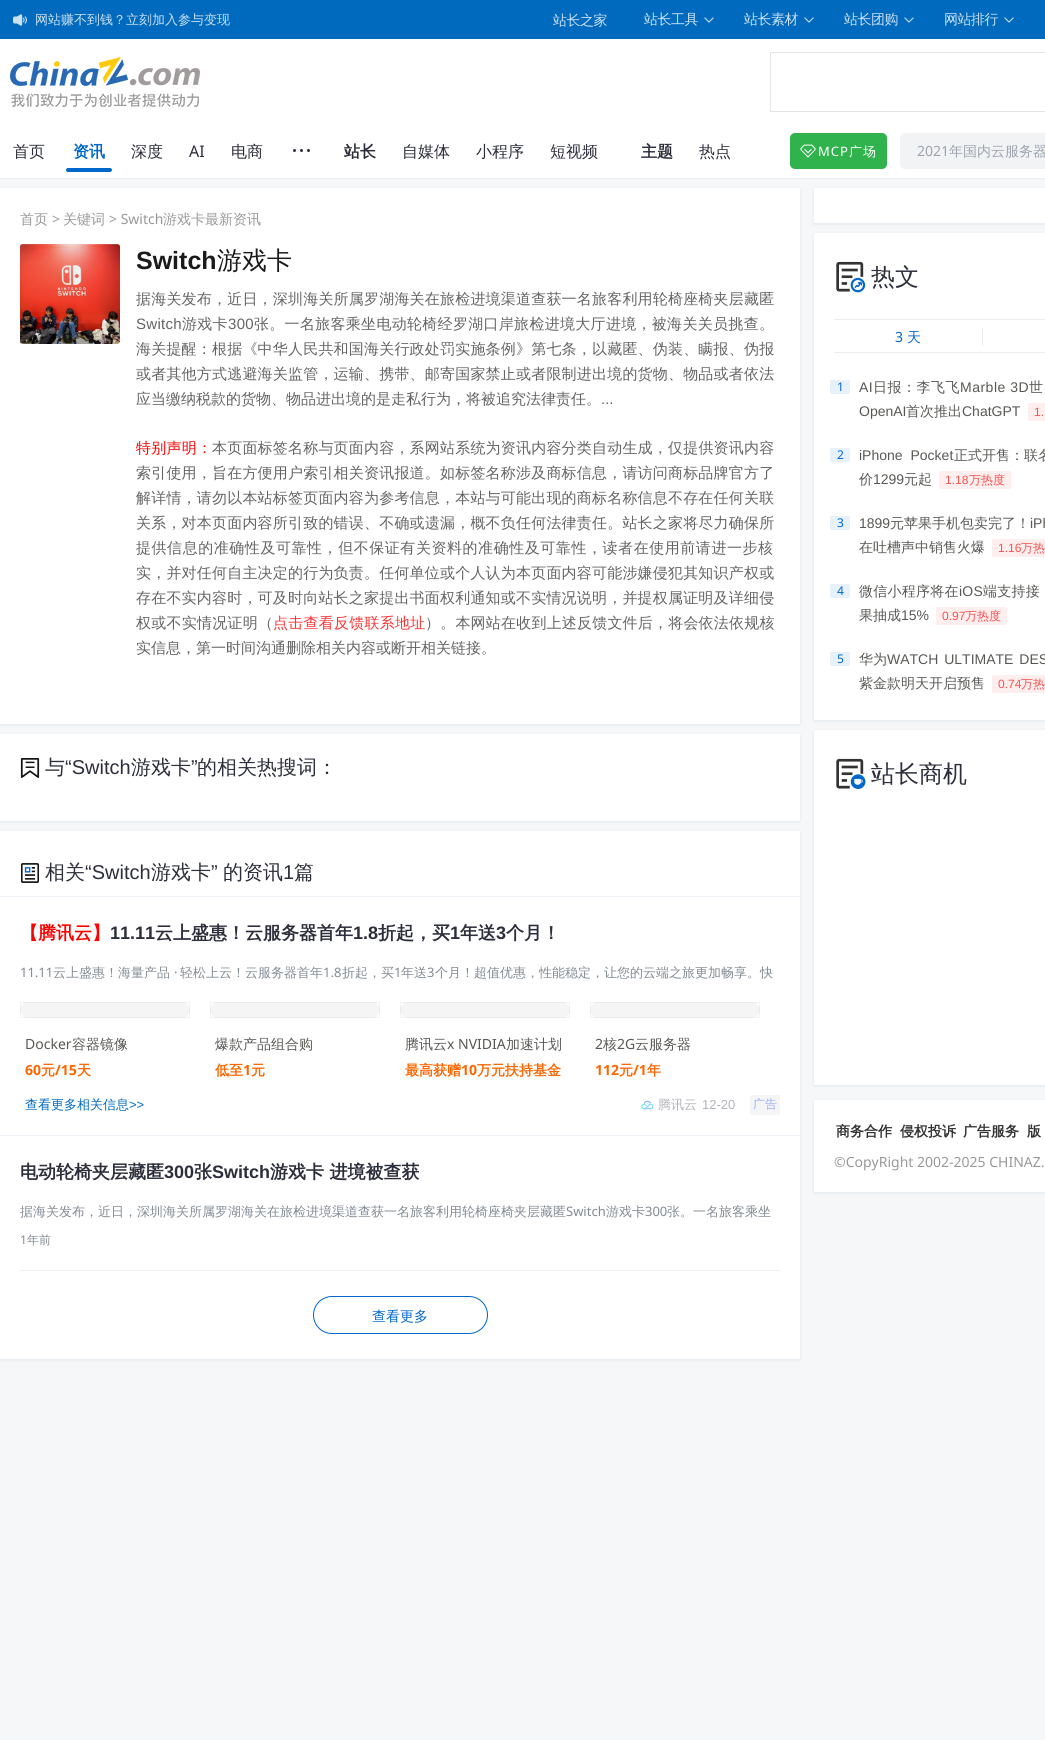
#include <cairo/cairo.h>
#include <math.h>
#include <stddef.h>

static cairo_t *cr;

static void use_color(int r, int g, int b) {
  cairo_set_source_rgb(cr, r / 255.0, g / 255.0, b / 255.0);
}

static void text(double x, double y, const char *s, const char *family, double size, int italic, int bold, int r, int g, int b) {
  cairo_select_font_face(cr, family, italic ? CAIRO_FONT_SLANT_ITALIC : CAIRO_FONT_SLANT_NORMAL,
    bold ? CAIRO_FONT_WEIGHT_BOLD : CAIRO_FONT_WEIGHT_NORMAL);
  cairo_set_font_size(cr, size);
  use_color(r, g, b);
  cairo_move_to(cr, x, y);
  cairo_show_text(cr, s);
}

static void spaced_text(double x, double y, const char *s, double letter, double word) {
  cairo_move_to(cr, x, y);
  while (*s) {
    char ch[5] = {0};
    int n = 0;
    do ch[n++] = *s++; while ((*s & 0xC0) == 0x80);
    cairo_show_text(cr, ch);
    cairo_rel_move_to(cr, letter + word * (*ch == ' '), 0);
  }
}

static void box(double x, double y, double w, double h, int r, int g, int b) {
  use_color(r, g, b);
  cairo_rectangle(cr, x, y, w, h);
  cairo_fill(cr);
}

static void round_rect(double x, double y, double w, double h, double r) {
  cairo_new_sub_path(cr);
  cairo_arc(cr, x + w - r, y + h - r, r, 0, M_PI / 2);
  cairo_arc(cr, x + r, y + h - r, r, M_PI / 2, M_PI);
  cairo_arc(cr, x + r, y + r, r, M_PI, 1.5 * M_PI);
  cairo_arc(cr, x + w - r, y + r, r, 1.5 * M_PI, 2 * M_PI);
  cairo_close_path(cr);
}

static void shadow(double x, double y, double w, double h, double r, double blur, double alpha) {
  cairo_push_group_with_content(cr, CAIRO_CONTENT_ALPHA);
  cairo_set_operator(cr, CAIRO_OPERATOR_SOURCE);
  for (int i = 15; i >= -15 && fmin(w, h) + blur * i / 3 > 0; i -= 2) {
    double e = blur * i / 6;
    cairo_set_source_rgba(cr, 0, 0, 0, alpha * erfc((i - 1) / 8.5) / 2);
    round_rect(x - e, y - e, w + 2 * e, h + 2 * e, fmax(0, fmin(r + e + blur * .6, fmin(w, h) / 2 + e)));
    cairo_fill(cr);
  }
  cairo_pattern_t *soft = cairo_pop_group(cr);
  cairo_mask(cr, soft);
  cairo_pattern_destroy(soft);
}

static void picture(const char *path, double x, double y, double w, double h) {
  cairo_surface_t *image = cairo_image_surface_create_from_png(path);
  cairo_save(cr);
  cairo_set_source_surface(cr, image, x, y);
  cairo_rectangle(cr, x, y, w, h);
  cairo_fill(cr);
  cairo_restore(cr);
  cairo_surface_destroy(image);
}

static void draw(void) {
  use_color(246, 247, 248);
  cairo_paint(cr);
  box(0, 0, 1045, 39, 0, 106, 190);
  box(0, 39, 1045, 139, 255, 255, 255);
  picture("img_01.png", 13, 14, 14, 12);
  picture("img_02.png", 704, 17, 10, 6);
  picture("img_02.png", 804, 17, 10, 6);
  picture("img_02.png", 904, 17, 10, 6);
  picture("img_02.png", 1004, 17, 10, 6);
  picture("img_03.png", 10, 57, 190, 50);
  cairo_rectangle(cr, 770.5, 52.5, 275, 59);
  use_color(229, 229, 229);
  cairo_set_line_width(cr, 1);
  cairo_stroke(cr);
  cairo_save(cr);
  cairo_rectangle(cr, 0, 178, 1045, 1);
  cairo_clip(cr);
  use_color(0, 0, 0);
  shadow(0, 124, 1045, 55, 0, 1, 0.06);
  cairo_restore(cr);
  use_color(0, 103, 203);
  round_rect(66, 168, 46, 4, 2);
  cairo_fill(cr);
  use_color(44, 46, 59);
  cairo_arc(cr, 301.5, 150.5, 1.5, 0, 2 * M_PI);
  cairo_fill(cr);
  cairo_arc(cr, 294.5, 150.5, 1.5, 0, 2 * M_PI);
  cairo_fill(cr);
  cairo_arc(cr, 308.5, 150.5, 1.5, 0, 2 * M_PI);
  cairo_fill(cr);
  use_color(48, 179, 77);
  round_rect(790, 133, 97, 36, 5);
  cairo_fill(cr);
  picture("img_04.png", 800, 144, 16, 14);
  use_color(242, 243, 244);
  round_rect(900.5, 133.5, 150, 35, 4.5);
  cairo_fill_preserve(cr);
  cairo_stroke(cr);
  use_color(27, 95, 160);
  shadow(0, 189, 800, 536, 0, 1.5, 0.1);
  box(0, 188, 800, 536, 255, 255, 255);
  picture("img_05.png", 20, 244, 100, 100);
  use_color(27, 95, 160);
  shadow(0, 735, 800, 87, 0, 1.5, 0.1);
  box(0, 734, 800, 87, 255, 255, 255);
  picture("img_06.png", 20, 758, 20, 20);
  use_color(27, 95, 160);
  shadow(0, 832, 800, 528, 0, 1.5, 0.1);
  box(0, 831, 800, 528, 255, 255, 255);
  picture("img_07.png", 21, 863, 18, 20);
  box(20, 1270, 760, 1, 240, 242, 247);
  box(0, 896, 800, 1, 240, 242, 247);
  use_color(245, 245, 246);
  round_rect(20, 1002, 170, 16, 8);
  cairo_fill(cr);
  cairo_rectangle(cr, 20.5, 1002.5, 169, 15);
  cairo_set_source_rgba(cr, 0, 0, 0, 0.05);
  cairo_stroke(cr);
  use_color(245, 245, 246);
  round_rect(210, 1002, 170, 16, 8);
  cairo_fill(cr);
  cairo_rectangle(cr, 210.5, 1002.5, 169, 15);
  cairo_set_source_rgba(cr, 0, 0, 0, 0.05);
  cairo_stroke(cr);
  use_color(245, 245, 246);
  round_rect(400, 1002, 170, 16, 8);
  cairo_fill(cr);
  cairo_rectangle(cr, 400.5, 1002.5, 169, 15);
  cairo_set_source_rgba(cr, 0, 0, 0, 0.05);
  cairo_stroke(cr);
  use_color(245, 245, 246);
  round_rect(590, 1002, 170, 16, 8);
  cairo_fill(cr);
  cairo_rectangle(cr, 590.5, 1002.5, 169, 15);
  cairo_set_source_rgba(cr, 0, 0, 0, 0.05);
  cairo_stroke(cr);
  picture("img_08.png", 641, 1100, 13, 10);
  use_color(245, 245, 246);
  round_rect(750, 1095, 30, 20, 2);
  cairo_fill(cr);
  box(0, 1135, 800, 1, 240, 242, 247);
  round_rect(313.5, 1296.5, 174, 37, 18.5);
  use_color(0, 103, 203);
  cairo_stroke(cr);
  use_color(27, 95, 160);
  shadow(814, 189, 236, 35, 0, 1.5, 0.1);
  box(814, 188, 231, 35, 255, 255, 255);
  use_color(27, 95, 160);
  shadow(814, 234, 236, 487, 0, 1.5, 0.1);
  box(814, 233, 231, 487, 255, 255, 255);
  picture("img_09.png", 836, 261, 30, 32);
  box(834, 319, 211, 1, 234, 238, 239);
  box(834, 352, 211, 1, 234, 238, 239);
  box(982, 328, 1, 18, 234, 238, 239);
  use_color(230, 241, 251);
  round_rect(830, 380, 20, 14, 2);
  cairo_fill(cr);
  use_color(255, 238, 238);
  round_rect(1028, 403, 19, 18, 2);
  cairo_fill(cr);
  use_color(230, 241, 251);
  round_rect(830, 448, 20, 14, 2);
  cairo_fill(cr);
  use_color(255, 238, 238);
  round_rect(939, 471, 72, 18, 2);
  cairo_fill(cr);
  use_color(230, 241, 251);
  round_rect(830, 516, 20, 14, 2);
  cairo_fill(cr);
  use_color(255, 238, 238);
  round_rect(992, 539, 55, 18, 2);
  cairo_fill(cr);
  use_color(230, 241, 251);
  round_rect(830, 584, 20, 14, 2);
  cairo_fill(cr);
  use_color(255, 238, 238);
  round_rect(936, 607, 71, 18, 2);
  cairo_fill(cr);
  use_color(230, 241, 251);
  round_rect(830, 652, 20, 14, 2);
  cairo_fill(cr);
  use_color(255, 238, 238);
  round_rect(992, 675, 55, 18, 2);
  cairo_fill(cr);
  use_color(27, 95, 160);
  shadow(814, 731, 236, 355, 0, 1.5, 0.1);
  box(814, 730, 231, 355, 255, 255, 255);
  picture("img_10.png", 836, 758, 30, 31);
  use_color(27, 95, 160);
  shadow(814, 1101, 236, 92, 0, 1.5, 0.1);
  box(814, 1100, 231, 92, 255, 255, 255);
  text(35, 24, "网站赚不到钱？立刻加入参与变现", "WenQuanYi Zen Hei Medium", 13, 0, 0, 204, 225, 242);
  cairo_set_font_size(cr, 14);
  spaced_text(553, 25, "站长之家", -0.5, 0);
  spaced_text(644, 24, "站长工具", -0.5, 0);
  spaced_text(744, 24, "站长素材", -0.5, 0);
  spaced_text(844, 24, "站长团购", -0.5, 0);
  spaced_text(944, 24, "网站排行", -0.5, 0);
  text(13, 157, "首页", "WenQuanYi Zen Hei Medium", 16, 0, 0, 44, 46, 59);
  text(73, 157, "资讯", "WenQuanYi Zen Hei", 16, 0, 1, 0, 103, 203);
  text(131, 157, "深度", "WenQuanYi Zen Hei Medium", 16, 0, 0, 44, 46, 59);
  text(189, 157, "AI", "Noto Sans", 16, 0, 0, 44, 46, 59);
  text(231, 157, "电商", "WenQuanYi Zen Hei Medium", 16, 0, 0, 44, 46, 59);
  text(344, 157, "站长", "WenQuanYi Zen Hei", 16, 0, 1, 44, 46, 59);
  text(402, 157, "自媒体", "WenQuanYi Zen Hei Medium", 16, 0, 0, 44, 46, 59);
  text(476, 157, "小程序", "WenQuanYi Zen Hei Medium", 16, 0, 0, 44, 46, 59);
  text(550, 157, "短视频", "WenQuanYi Zen Hei Medium", 16, 0, 0, 44, 46, 59);
  text(641, 157, "主题", "WenQuanYi Zen Hei", 16, 0, 1, 44, 46, 59);
  text(699, 157, "热点", "WenQuanYi Zen Hei Medium", 16, 0, 0, 44, 46, 59);
  cairo_select_font_face(cr, "Noto Sans", CAIRO_FONT_SLANT_NORMAL, CAIRO_FONT_WEIGHT_NORMAL);
  cairo_set_font_size(cr, 13);
  use_color(255, 255, 255);
  spaced_text(818, 156, "MCP", 1, 0);
  cairo_select_font_face(cr, "WenQuanYi Zen Hei Medium", CAIRO_FONT_SLANT_NORMAL, CAIRO_FONT_WEIGHT_NORMAL);
  spaced_text(849, 156, "广场", 1, 0);
  text(917, 156, "2021", "Noto Sans", 14, 0, 0, 156, 163, 175);
  text(949, 156, "年国内云服务器", "WenQuanYi Zen Hei Medium", 14, 0, 0, 156, 163, 175);
  text(20, 224, "首页", "WenQuanYi Zen Hei Medium", 14, 0, 0, 153, 153, 153);
  text(52, 224, ">", "Noto Sans", 14, 0, 0, 153, 153, 153);
  text(63, 224, "关键词", "WenQuanYi Zen Hei Medium", 14, 0, 0, 153, 153, 153);
  text(109, 224, "> Switch", "Noto Sans", 14, 0, 0, 153, 153, 153);
  text(163, 224, "游戏卡最新资讯", "WenQuanYi Zen Hei Medium", 14, 0, 0, 153, 153, 153);
  text(136, 269, "Switch", "Liberation Sans", 25, 0, 1, 26, 26, 26);
  text(217, 269, "游戏卡", "WenQuanYi Zen Hei Medium", 25, 0, 0, 26, 26, 26);
  cairo_set_font_size(cr, 15);
  use_color(100, 100, 100);
  spaced_text(136, 304, "据海关发布，近日，深圳海关所属罗湖海关在旅检进境渠道查获一名旅客利用轮椅座椅夹层藏匿", 0.2, 0);
  cairo_select_font_face(cr, "Liberation Sans", CAIRO_FONT_SLANT_NORMAL, CAIRO_FONT_WEIGHT_NORMAL);
  spaced_text(136, 329, "Switch", 0.3, 0);
  cairo_select_font_face(cr, "WenQuanYi Zen Hei Medium", CAIRO_FONT_SLANT_NORMAL, CAIRO_FONT_WEIGHT_NORMAL);
  spaced_text(182, 329, "游戏卡", 0.3, 0);
  cairo_select_font_face(cr, "Liberation Sans", CAIRO_FONT_SLANT_NORMAL, CAIRO_FONT_WEIGHT_NORMAL);
  spaced_text(228, 329, "300", 0.3, 0);
  cairo_select_font_face(cr, "WenQuanYi Zen Hei Medium", CAIRO_FONT_SLANT_NORMAL, CAIRO_FONT_WEIGHT_NORMAL);
  spaced_text(254, 329, "张。一名旅客乘坐电动轮椅经罗湖口岸旅检进境大厅进境，被海关关员挑查。", 0.3, 0);
  spaced_text(136, 354, "海关提醒：根据《中华人民共和国海关行政处罚实施条例》第七条，以藏匿、伪装、瞒报、伪报", 0.2, 0);
  spaced_text(136, 379, "或者其他方式逃避海关监管，运输、携带、邮寄国家禁止或者限制进出境的货物、物品或者依法", 0.2, 0);
  text(136, 404, "应当缴纳税款的货物、物品进出境的是走私行为，将被追究法律责任。", "WenQuanYi Zen Hei Medium", 15, 0, 0, 100, 100, 100);
  text(601, 404, "...", "Liberation Sans", 15, 0, 0, 100, 100, 100);
  cairo_select_font_face(cr, "WenQuanYi Zen Hei Medium", CAIRO_FONT_SLANT_NORMAL, CAIRO_FONT_WEIGHT_NORMAL);
  use_color(255, 0, 0);
  spaced_text(136, 453, "特别声明：", 0.25, 0);
  use_color(100, 100, 100);
  spaced_text(212, 453, "本页面标签名称与页面内容，系网站系统为资讯内容分类自动生成，仅提供资讯内容", 0.2, 0);
  spaced_text(136, 478, "索引使用，旨在方便用户索引相关资讯报道。如标签名称涉及商标信息，请访问商标品牌官方了", 0.2, 0);
  spaced_text(136, 503, "解详情，请勿以本站标签页面内容为参考信息，本站与可能出现的商标名称信息不存在任何关联", 0.2, 0);
  spaced_text(136, 528, "关系，对本页面内容所引致的错误、不确或遗漏，概不负任何法律责任。站长之家将尽力确保所", 0.2, 0);
  spaced_text(136, 553, "提供信息的准确性及可靠性，但不保证有关资料的准确性及可靠性，读者在使用前请进一步核", 0.55, 0);
  spaced_text(136, 578, "实，并对任何自主决定的行为负责。任何单位或个人认为本页面内容可能涉嫌侵犯其知识产权或", 0.2, 0);
  spaced_text(136, 603, "存在不实内容时，可及时向站长之家提出书面权利通知或不实情况说明，并提权属证明及详细侵", 0.2, 0);
  spaced_text(136, 628, "权或不实情况证明（", 0.25, 0);
  use_color(255, 51, 51);
  spaced_text(273, 628, "点击查看反馈联系地址", 0.25, 0);
  use_color(100, 100, 100);
  spaced_text(425, 628, "）。本网站在收到上述反馈文件后，将会依法依规核", 0.2, 0);
  text(136, 653, "实信息，第一时间沟通删除相关内容或断开相关链接。", "WenQuanYi Zen Hei Medium", 15, 0, 0, 100, 100, 100);
  text(45, 774, "与", "WenQuanYi Zen Hei Medium", 20, 0, 0, 44, 46, 59);
  text(65, 774, "“Switch", "Liberation Sans", 20, 0, 0, 44, 46, 59);
  text(131, 774, "游戏卡", "WenQuanYi Zen Hei Medium", 20, 0, 0, 44, 46, 59);
  text(191, 774, "”", "Liberation Sans", 20, 0, 0, 44, 46, 59);
  text(197, 774, "的相关热搜词：", "WenQuanYi Zen Hei Medium", 20, 0, 0, 44, 46, 59);
  text(45, 879, "相关", "WenQuanYi Zen Hei Medium", 20, 0, 0, 44, 46, 59);
  text(85, 879, "“Switch", "Liberation Sans", 20, 0, 0, 44, 46, 59);
  text(151, 879, "游戏卡", "WenQuanYi Zen Hei Medium", 20, 0, 0, 44, 46, 59);
  text(211, 879, "”", "Liberation Sans", 20, 0, 0, 44, 46, 59);
  text(223, 879, "的资讯", "WenQuanYi Zen Hei Medium", 20, 0, 0, 44, 46, 59);
  text(283, 879, "1", "Liberation Sans", 20, 0, 0, 44, 46, 59);
  text(294, 879, "篇", "WenQuanYi Zen Hei Medium", 20, 0, 0, 44, 46, 59);
  text(20, 939, "【腾讯云】", "WenQuanYi Zen Hei", 18, 0, 1, 255, 0, 0);
  text(110, 939, "11.11", "Liberation Sans", 18, 0, 1, 44, 46, 59);
  text(155, 939, "云上盛惠！云服务器首年", "WenQuanYi Zen Hei", 18, 0, 1, 44, 46, 59);
  text(353, 939, "1.8", "Liberation Sans", 18, 0, 1, 44, 46, 59);
  text(378, 939, "折起，买", "WenQuanYi Zen Hei", 18, 0, 1, 44, 46, 59);
  text(450, 939, "1", "Liberation Sans", 18, 0, 1, 44, 46, 59);
  text(460, 939, "年送", "WenQuanYi Zen Hei", 18, 0, 1, 44, 46, 59);
  text(496, 939, "3", "Liberation Sans", 18, 0, 1, 44, 46, 59);
  text(506, 939, "个月！", "WenQuanYi Zen Hei", 18, 0, 1, 44, 46, 59);
  text(20, 977, "11.11", "Noto Sans", 13, 0, 0, 130, 138, 146);
  text(53, 977, "云上盛惠！海量产品", "WenQuanYi Zen Hei Medium", 13, 0, 0, 130, 138, 146);
  text(174, 977, "·", "Noto Sans", 13, 0, 0, 130, 138, 146);
  text(180, 977, "轻松上云！云服务器首年", "WenQuanYi Zen Hei Medium", 13, 0, 0, 130, 138, 146);
  text(323, 977, "1.8", "Noto Sans", 13, 0, 0, 130, 138, 146);
  text(342, 977, "折起，买", "WenQuanYi Zen Hei Medium", 13, 0, 0, 130, 138, 146);
  text(394, 977, "1", "Noto Sans", 13, 0, 0, 130, 138, 146);
  text(401, 977, "年送", "WenQuanYi Zen Hei Medium", 13, 0, 0, 130, 138, 146);
  text(427, 977, "3", "Noto Sans", 13, 0, 0, 130, 138, 146);
  text(435, 977, "个月！超值优惠，性能稳定，让您的云端之旅更加畅享。快", "WenQuanYi Zen Hei Medium", 13, 0, 0, 130, 138, 146);
  text(25, 1049, "Docker", "Noto Sans", 14, 0, 0, 89, 88, 85);
  text(72, 1049, "容器镜像", "WenQuanYi Zen Hei Medium", 14, 0, 0, 89, 88, 85);
  text(25, 1075, "60", "Noto Sans", 14, 0, 1, 255, 102, 0);
  text(41, 1075, "元", "WenQuanYi Zen Hei", 14, 0, 1, 255, 102, 0);
  text(55, 1075, "/15", "Noto Sans", 14, 0, 1, 255, 102, 0);
  text(77, 1075, "天", "WenQuanYi Zen Hei", 14, 0, 1, 255, 102, 0);
  text(215, 1049, "爆款产品组合购", "WenQuanYi Zen Hei Medium", 14, 0, 0, 89, 88, 85);
  text(215, 1075, "低至", "WenQuanYi Zen Hei", 14, 0, 1, 255, 102, 0);
  text(243, 1075, "1", "Noto Sans", 14, 0, 1, 255, 102, 0);
  text(251, 1075, "元", "WenQuanYi Zen Hei", 14, 0, 1, 255, 102, 0);
  text(405, 1049, "腾讯云", "WenQuanYi Zen Hei Medium", 14, 0, 0, 89, 88, 85);
  text(447, 1049, "x NVIDIA", "Noto Sans", 14, 0, 0, 89, 88, 85);
  text(506, 1049, "加速计划", "WenQuanYi Zen Hei Medium", 14, 0, 0, 89, 88, 85);
  text(405, 1075, "最高获赠", "WenQuanYi Zen Hei", 14, 0, 1, 255, 102, 0);
  text(461, 1075, "10", "Noto Sans", 14, 0, 1, 255, 102, 0);
  text(477, 1075, "万元扶持基金", "WenQuanYi Zen Hei", 14, 0, 1, 255, 102, 0);
  text(595, 1049, "2", "Noto Sans", 14, 0, 0, 89, 88, 85);
  text(603, 1049, "核", "WenQuanYi Zen Hei Medium", 14, 0, 0, 89, 88, 85);
  text(617, 1049, "2G", "Noto Sans", 14, 0, 0, 89, 88, 85);
  text(635, 1049, "云服务器", "WenQuanYi Zen Hei Medium", 14, 0, 0, 89, 88, 85);
  text(595, 1075, "112", "Noto Sans", 14, 0, 1, 255, 102, 0);
  text(619, 1075, "元", "WenQuanYi Zen Hei", 14, 0, 1, 255, 102, 0);
  text(633, 1075, "/1", "Noto Sans", 14, 0, 1, 255, 102, 0);
  text(647, 1075, "年", "WenQuanYi Zen Hei", 14, 0, 1, 255, 102, 0);
  text(25, 1109, "查看更多相关信息", "WenQuanYi Zen Hei Medium", 13, 0, 0, 0, 106, 190);
  text(129, 1109, ">>", "Liberation Sans", 13, 0, 0, 0, 106, 190);
  text(658, 1109, "腾讯云", "WenQuanYi Zen Hei Medium", 13, 0, 0, 177, 179, 186);
  text(702, 1109, "12-20", "Liberation Sans", 13, 0, 0, 177, 179, 186);
  text(753, 1108, "广告", "WenQuanYi Zen Hei Medium", 12, 0, 0, 158, 176, 248);
  text(20, 1178, "电动轮椅夹层藏匿", "WenQuanYi Zen Hei", 18, 0, 1, 44, 46, 59);
  text(164, 1178, "300", "Liberation Sans", 18, 0, 1, 44, 46, 59);
  text(194, 1178, "张", "WenQuanYi Zen Hei", 18, 0, 1, 44, 46, 59);
  text(212, 1178, "Switch", "Liberation Sans", 18, 0, 1, 44, 46, 59);
  text(270, 1178, "游戏卡 进境被查获", "WenQuanYi Zen Hei", 18, 0, 1, 44, 46, 59);
  text(20, 1216, "据海关发布，近日，深圳海关所属罗湖海关在旅检进境渠道查获一名旅客利用轮椅座椅夹层藏匿", "WenQuanYi Zen Hei Medium", 13, 0, 0, 130, 138, 146);
  text(566, 1216, "Switch", "Noto Sans", 13, 0, 0, 130, 138, 146);
  text(606, 1216, "游戏卡", "WenQuanYi Zen Hei Medium", 13, 0, 0, 130, 138, 146);
  text(645, 1216, "300", "Noto Sans", 13, 0, 0, 130, 138, 146);
  text(667, 1216, "张。一名旅客乘坐", "WenQuanYi Zen Hei Medium", 13, 0, 0, 130, 138, 146);
  text(20, 1244, "1", "Noto Sans", 12, 0, 0, 130, 138, 146);
  text(27, 1244, "年前", "WenQuanYi Zen Hei Medium", 12, 0, 0, 130, 138, 146);
  text(372, 1321, "查看更多", "WenQuanYi Zen Hei Medium", 14, 0, 0, 0, 103, 203);
  text(871, 285, "热文", "WenQuanYi Zen Hei Medium", 24, 0, 0, 44, 46, 59);
  text(895, 342, "3", "Noto Sans", 14, 0, 0, 0, 103, 203);
  text(907, 342, "天", "WenQuanYi Zen Hei Medium", 14, 0, 0, 0, 103, 203);
  text(837, 391, "1", "Noto Sans", 12, 0, 0, 0, 103, 203);
  cairo_select_font_face(cr, "Liberation Sans", CAIRO_FONT_SLANT_NORMAL, CAIRO_FONT_WEIGHT_NORMAL);
  cairo_set_font_size(cr, 14);
  use_color(89, 88, 85);
  spaced_text(859, 392, "AI", 0.5, 0);
  cairo_select_font_face(cr, "WenQuanYi Zen Hei Medium", CAIRO_FONT_SLANT_NORMAL, CAIRO_FONT_WEIGHT_NORMAL);
  spaced_text(873, 392, "日报：李飞飞", 0.5, 0);
  cairo_select_font_face(cr, "Liberation Sans", CAIRO_FONT_SLANT_NORMAL, CAIRO_FONT_WEIGHT_NORMAL);
  spaced_text(960, 392, "Marble 3D", 0.5, 0);
  cairo_select_font_face(cr, "WenQuanYi Zen Hei Medium", CAIRO_FONT_SLANT_NORMAL, CAIRO_FONT_WEIGHT_NORMAL);
  spaced_text(1029, 392, "世", 0.5, 0);
  text(859, 416, "OpenAI", "Liberation Sans", 14, 0, 0, 89, 88, 85);
  text(906, 416, "首次推出", "WenQuanYi Zen Hei Medium", 14, 0, 0, 89, 88, 85);
  text(962, 416, "ChatGPT", "Liberation Sans", 14, 0, 0, 89, 88, 85);
  text(1034, 416, "1.", "Liberation Sans", 12, 0, 0, 251, 80, 80);
  text(837, 459, "2", "Noto Sans", 12, 0, 0, 0, 103, 203);
  cairo_select_font_face(cr, "Liberation Sans", CAIRO_FONT_SLANT_NORMAL, CAIRO_FONT_WEIGHT_NORMAL);
  cairo_set_font_size(cr, 14);
  use_color(89, 88, 85);
  spaced_text(859, 460, "iPhone Pocket", 0, 4);
  text(954, 460, "正式开售：联名", "WenQuanYi Zen Hei Medium", 14, 0, 0, 89, 88, 85);
  text(859, 484, "价", "WenQuanYi Zen Hei Medium", 14, 0, 0, 89, 88, 85);
  text(873, 484, "1299", "Liberation Sans", 14, 0, 0, 89, 88, 85);
  text(904, 484, "元起", "WenQuanYi Zen Hei Medium", 14, 0, 0, 89, 88, 85);
  text(945, 484, "1.18", "Liberation Sans", 12, 0, 0, 251, 80, 80);
  text(969, 484, "万热度", "WenQuanYi Zen Hei Medium", 12, 0, 0, 251, 80, 80);
  text(837, 527, "3", "Noto Sans", 12, 0, 0, 0, 103, 203);
  text(859, 528, "1899", "Liberation Sans", 14, 0, 0, 89, 88, 85);
  text(890, 528, "元苹果手机包卖完了！", "WenQuanYi Zen Hei Medium", 14, 0, 0, 89, 88, 85);
  cairo_select_font_face(cr, "Liberation Sans", CAIRO_FONT_SLANT_NORMAL, CAIRO_FONT_WEIGHT_NORMAL);
  spaced_text(1030, 528, "iPh", 0, 10);
  text(859, 552, "在吐槽声中销售火爆", "WenQuanYi Zen Hei Medium", 14, 0, 0, 89, 88, 85);
  text(998, 552, "1.16", "Liberation Sans", 12, 0, 0, 251, 80, 80);
  text(1021, 552, "万热", "WenQuanYi Zen Hei Medium", 12, 0, 0, 251, 80, 80);
  text(837, 595, "4", "Noto Sans", 12, 0, 0, 0, 103, 203);
  cairo_select_font_face(cr, "WenQuanYi Zen Hei Medium", CAIRO_FONT_SLANT_NORMAL, CAIRO_FONT_WEIGHT_NORMAL);
  cairo_set_font_size(cr, 14);
  use_color(89, 88, 85);
  spaced_text(859, 596, "微信小程序将在", 0.25, 0);
  cairo_select_font_face(cr, "Liberation Sans", CAIRO_FONT_SLANT_NORMAL, CAIRO_FONT_WEIGHT_NORMAL);
  spaced_text(959, 596, "iOS", 0.25, 0);
  cairo_select_font_face(cr, "WenQuanYi Zen Hei Medium", CAIRO_FONT_SLANT_NORMAL, CAIRO_FONT_WEIGHT_NORMAL);
  spaced_text(983, 596, "端支持接", 0.25, 0);
  text(859, 620, "果抽成", "WenQuanYi Zen Hei Medium", 14, 0, 0, 89, 88, 85);
  text(901, 620, "15%", "Liberation Sans", 14, 0, 0, 89, 88, 85);
  text(942, 620, "0.97", "Liberation Sans", 12, 0, 0, 251, 80, 80);
  text(965, 620, "万热度", "WenQuanYi Zen Hei Medium", 12, 0, 0, 251, 80, 80);
  text(837, 663, "5", "Noto Sans", 12, 0, 0, 0, 103, 203);
  text(859, 664, "华为", "WenQuanYi Zen Hei Medium", 14, 0, 0, 89, 88, 85);
  cairo_select_font_face(cr, "Liberation Sans", CAIRO_FONT_SLANT_NORMAL, CAIRO_FONT_WEIGHT_NORMAL);
  spaced_text(887, 664, "WATCH ULTIMATE DES", 0, 2);
  text(859, 688, "紫金款明天开启预售", "WenQuanYi Zen Hei Medium", 14, 0, 0, 89, 88, 85);
  text(998, 688, "0.74", "Liberation Sans", 12, 0, 0, 251, 80, 80);
  text(1021, 688, "万热", "WenQuanYi Zen Hei Medium", 12, 0, 0, 251, 80, 80);
  text(871, 782, "站长商机", "WenQuanYi Zen Hei Medium", 24, 0, 0, 44, 46, 59);
  text(836, 1136, "商务合作", "WenQuanYi Zen Hei", 14, 0, 1, 51, 51, 51);
  text(900, 1136, "侵权投诉", "WenQuanYi Zen Hei", 14, 0, 1, 51, 51, 51);
  text(963, 1136, "广告服务", "WenQuanYi Zen Hei", 14, 0, 1, 51, 51, 51);
  text(1027, 1136, "版", "WenQuanYi Zen Hei", 14, 0, 1, 51, 51, 51);
  text(834, 1167, "©CopyRight 2002-2025 CHINAZ.", "Noto Sans", 14, 0, 0, 153, 153, 153);
}

int main(void) {
  cairo_surface_t *surface = cairo_image_surface_create(CAIRO_FORMAT_RGB24, 1045, 1740);
  cr = cairo_create(surface);
  cairo_font_options_t *options = cairo_font_options_create();
  cairo_font_options_set_hint_metrics(options, CAIRO_HINT_METRICS_OFF);
  cairo_font_options_set_hint_style(options, CAIRO_HINT_STYLE_NONE);
  cairo_set_font_options(cr, options);
  cairo_set_miter_limit(cr, 4);
  draw();
  cairo_surface_write_to_png(surface, "out.png");
  cairo_font_options_destroy(options);
  cairo_destroy(cr);
  cairo_surface_destroy(surface);
  return 0;
}
